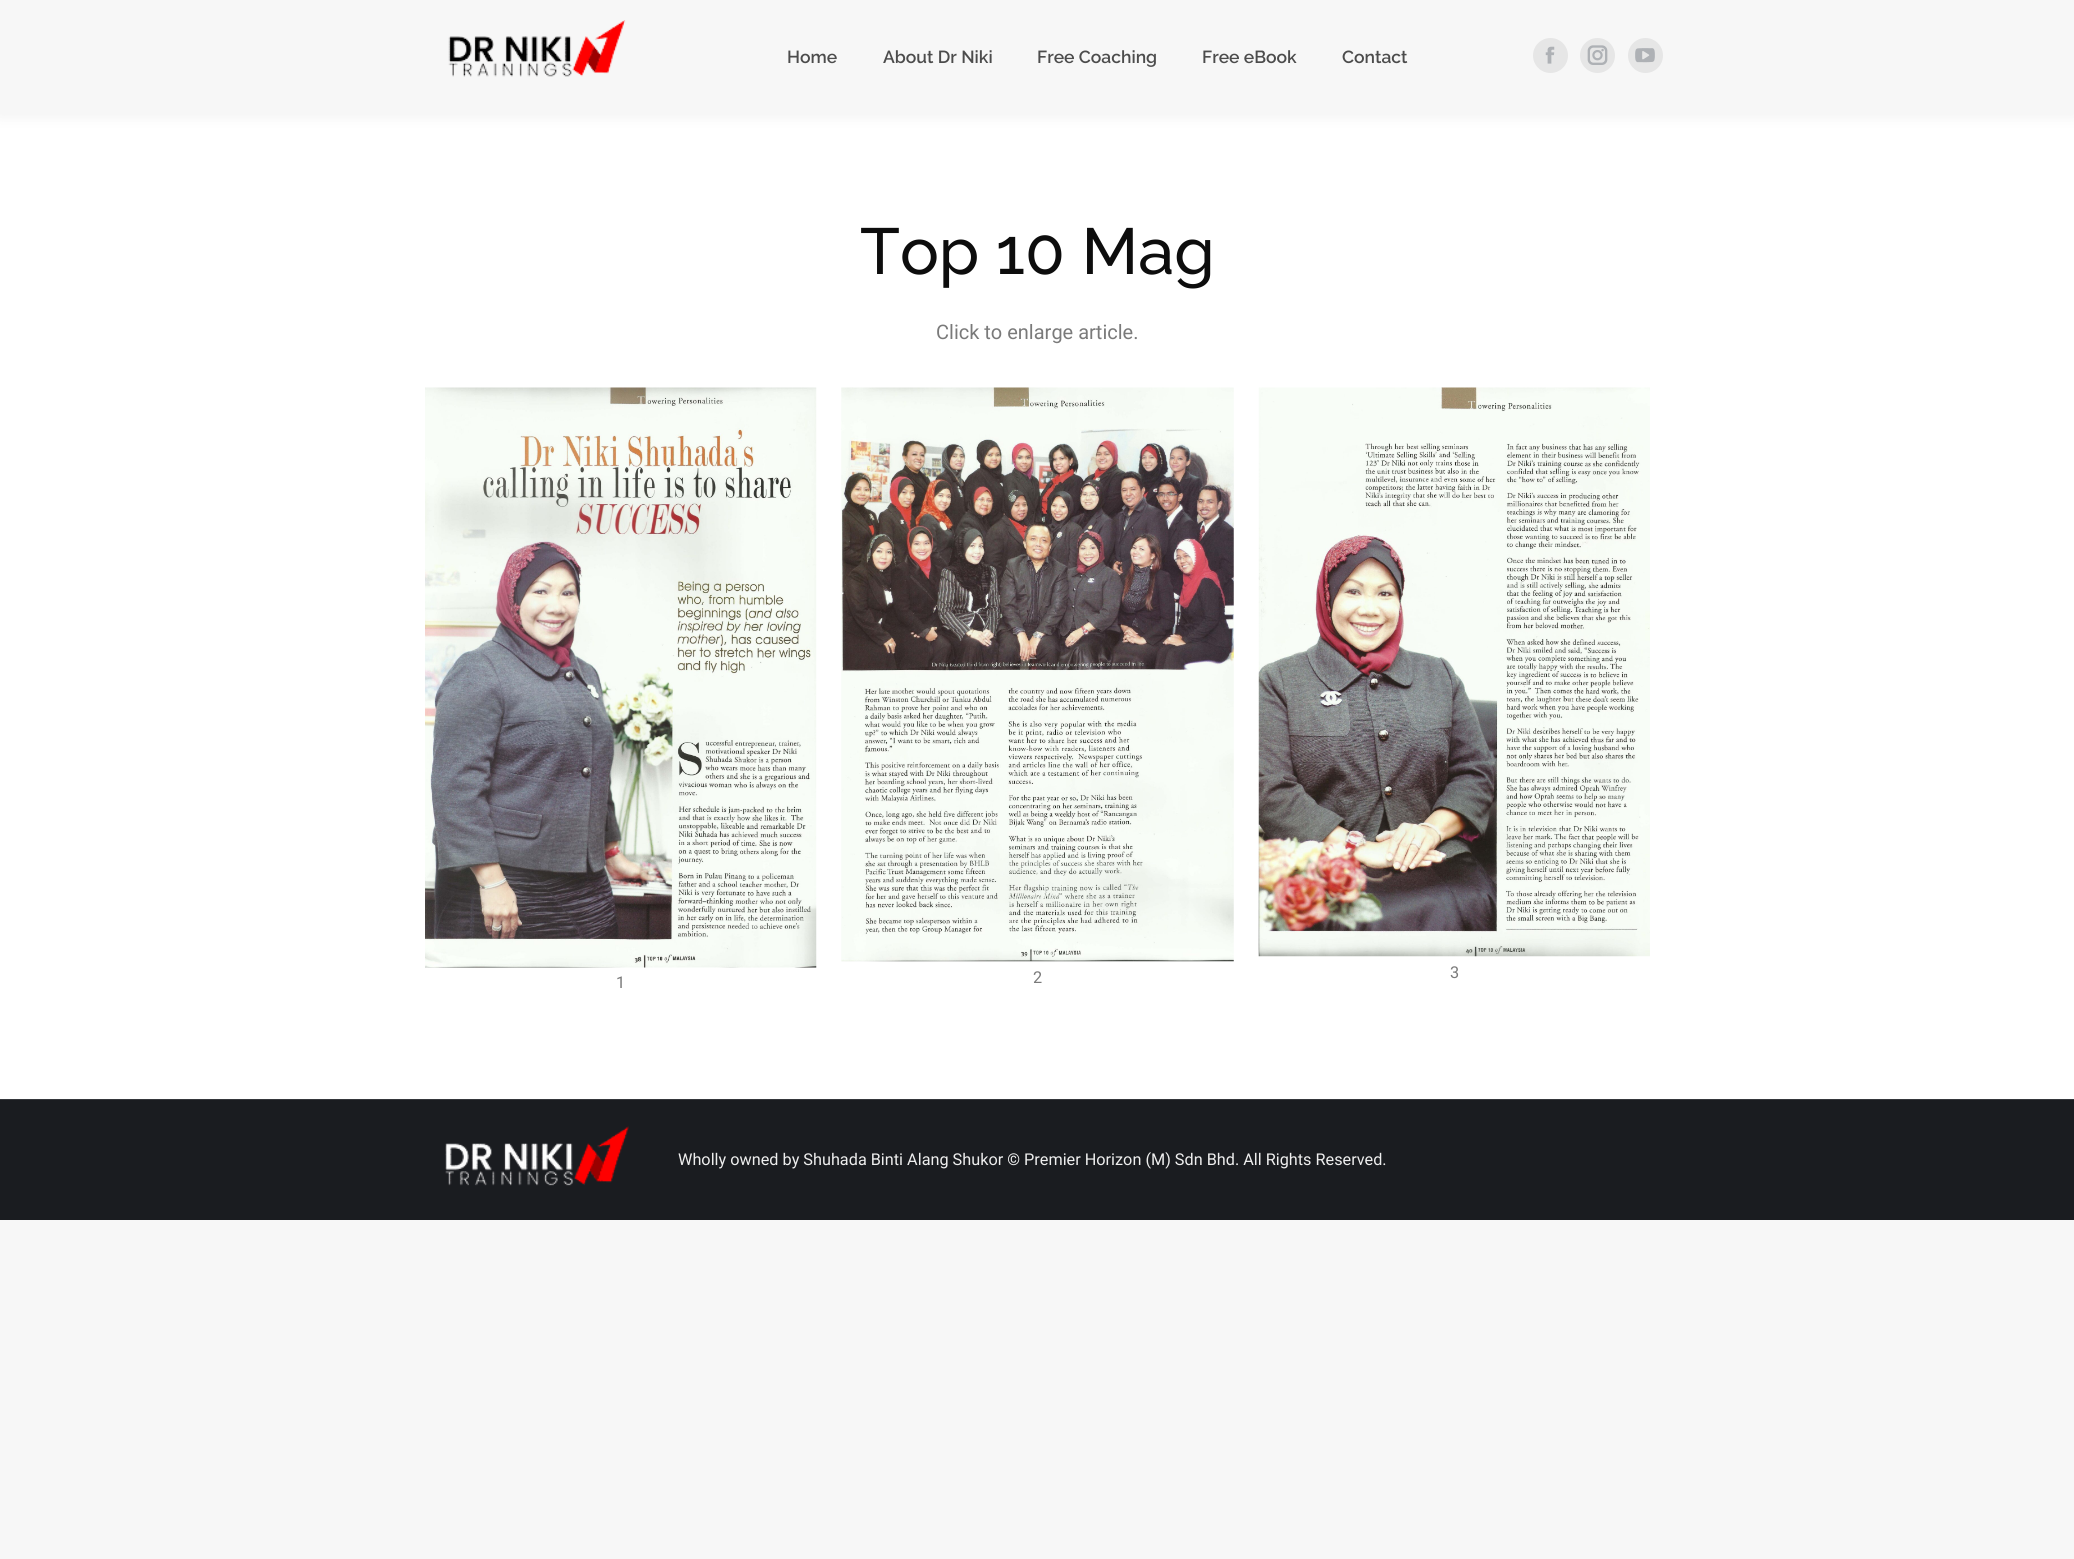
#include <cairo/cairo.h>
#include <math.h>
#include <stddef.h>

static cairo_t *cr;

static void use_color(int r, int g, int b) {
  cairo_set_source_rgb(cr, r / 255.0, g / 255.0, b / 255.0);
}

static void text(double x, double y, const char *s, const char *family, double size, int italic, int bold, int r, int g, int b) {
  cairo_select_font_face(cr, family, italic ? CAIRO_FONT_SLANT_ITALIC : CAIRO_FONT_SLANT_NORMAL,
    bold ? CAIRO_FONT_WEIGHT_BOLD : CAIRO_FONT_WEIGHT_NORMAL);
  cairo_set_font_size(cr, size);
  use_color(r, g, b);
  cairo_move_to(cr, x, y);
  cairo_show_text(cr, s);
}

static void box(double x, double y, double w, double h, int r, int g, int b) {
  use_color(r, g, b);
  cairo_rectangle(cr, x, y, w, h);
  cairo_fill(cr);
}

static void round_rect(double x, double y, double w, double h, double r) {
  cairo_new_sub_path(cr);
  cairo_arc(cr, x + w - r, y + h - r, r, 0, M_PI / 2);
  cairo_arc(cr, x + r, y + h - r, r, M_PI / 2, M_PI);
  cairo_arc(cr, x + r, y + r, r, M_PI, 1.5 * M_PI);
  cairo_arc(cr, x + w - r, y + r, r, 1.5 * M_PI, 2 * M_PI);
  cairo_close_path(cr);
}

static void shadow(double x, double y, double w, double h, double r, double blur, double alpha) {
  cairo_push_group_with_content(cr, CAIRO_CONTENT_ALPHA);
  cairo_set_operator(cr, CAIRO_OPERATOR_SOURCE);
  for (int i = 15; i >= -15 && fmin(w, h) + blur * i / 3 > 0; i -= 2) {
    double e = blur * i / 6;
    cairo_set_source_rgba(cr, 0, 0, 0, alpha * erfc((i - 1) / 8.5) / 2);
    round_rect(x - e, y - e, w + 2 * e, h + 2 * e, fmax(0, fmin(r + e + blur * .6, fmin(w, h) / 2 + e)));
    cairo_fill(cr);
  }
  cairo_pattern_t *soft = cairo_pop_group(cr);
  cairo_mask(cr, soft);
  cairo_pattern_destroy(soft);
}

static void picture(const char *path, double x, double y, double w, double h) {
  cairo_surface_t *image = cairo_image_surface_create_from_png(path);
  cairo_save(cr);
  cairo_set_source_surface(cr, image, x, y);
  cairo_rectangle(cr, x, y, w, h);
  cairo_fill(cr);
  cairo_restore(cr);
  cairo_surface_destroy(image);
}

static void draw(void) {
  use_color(247, 247, 247);
  cairo_paint(cr);
  box(0, 113, 2074, 986, 255, 255, 255);
  use_color(0, 0, 0);
  shadow(-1, -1, 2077, 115, 0, 9.5, 0.07);
  box(0, 0, 2074, 113, 247, 247, 247);
  picture("img_01.png", 448, 20, 178, 57);
  use_color(230, 230, 230);
  cairo_arc(cr, 1550.5, 55.5, 17.5, 0, 2 * M_PI);
  cairo_fill(cr);
  picture("img_02.png", 1545, 46, 10, 18);
  cairo_arc(cr, 1597.5, 55.5, 17.5, 0, 2 * M_PI);
  cairo_fill(cr);
  picture("img_03.png", 1587, 45, 21, 20);
  cairo_arc(cr, 1645.5, 55.5, 17.5, 0, 2 * M_PI);
  cairo_fill(cr);
  picture("img_04.png", 1635, 48, 20, 15);
  picture("img_05.png", 425, 387, 392, 581);
  picture("img_06.png", 841, 387, 393, 575);
  picture("img_07.png", 1258, 387, 392, 570);
  box(0, 1100, 2074, 120, 26, 28, 32);
  box(0, 1099, 2074, 1, 53, 55, 59);
  picture("img_08.png", 445, 1126, 184, 60);
  text(787, 63, "Home", "Raleway SemiBold", 17.5, 0, 0, 76, 76, 76);
  text(883, 63, "About Dr Niki", "Raleway SemiBold", 17.5, 0, 0, 76, 76, 76);
  text(1037, 63, "Free Coaching", "Raleway SemiBold", 17.5, 0, 0, 76, 76, 76);
  text(1202, 63, "Free eBook", "Raleway SemiBold", 17.5, 0, 0, 76, 76, 76);
  text(1342, 63, "Contact", "Raleway SemiBold", 17.5, 0, 0, 76, 76, 76);
  text(860, 274, "Top 10 Mag", "Raleway Medium", 65, 0, 0, 13, 13, 13);
  text(936, 339, "Click to enlarge article.", "Roboto", 20, 0, 0, 122, 122, 122);
  text(616, 988, "1", "Roboto", 16.25, 0, 0, 122, 122, 122);
  text(1033, 983, "2", "Roboto", 16.25, 0, 0, 122, 122, 122);
  text(1450, 978, "3", "Roboto", 16.25, 0, 0, 122, 122, 122);
  text(678, 1165, "Wholly owned by Shuhada Binti Alang Shukor © Premier Horizon (M) Sdn Bhd. All Rights Reserved.", "Roboto", 16.25, 0, 0, 238, 238, 238);
}

int main(void) {
  cairo_surface_t *surface = cairo_image_surface_create(CAIRO_FORMAT_RGB24, 2074, 1559);
  cr = cairo_create(surface);
  cairo_font_options_t *options = cairo_font_options_create();
  cairo_font_options_set_hint_metrics(options, CAIRO_HINT_METRICS_OFF);
  cairo_font_options_set_hint_style(options, CAIRO_HINT_STYLE_NONE);
  cairo_set_font_options(cr, options);
  cairo_set_miter_limit(cr, 4);
  draw();
  cairo_surface_write_to_png(surface, "out.png");
  cairo_font_options_destroy(options);
  cairo_destroy(cr);
  cairo_surface_destroy(surface);
  return 0;
}
